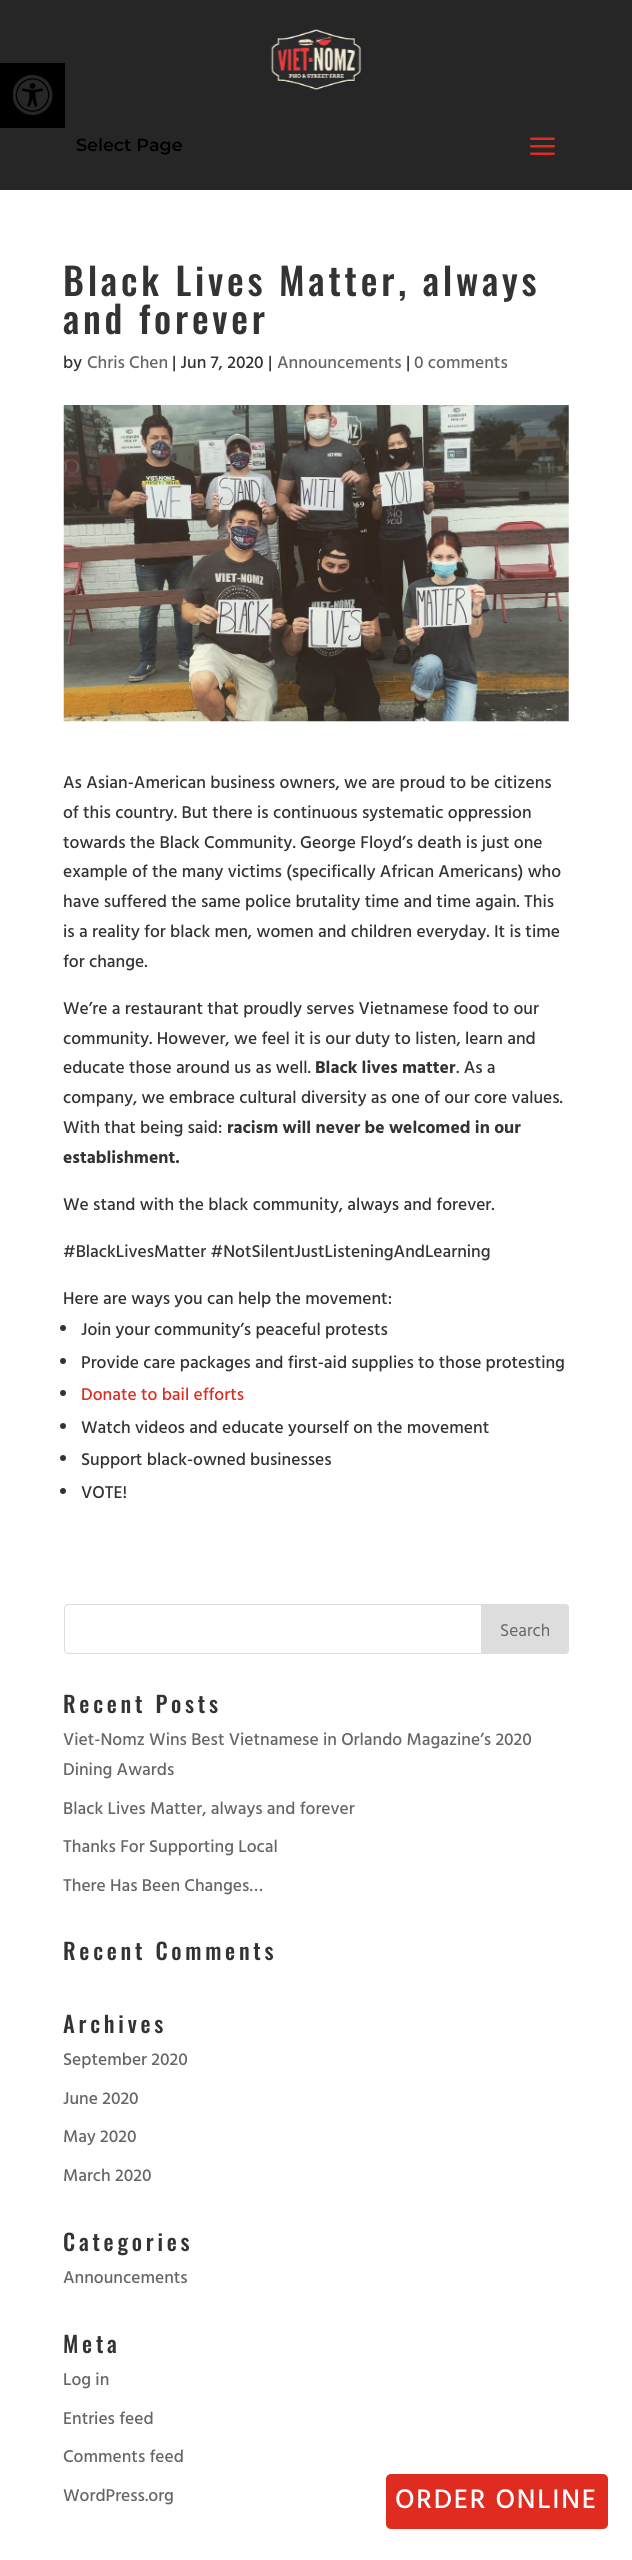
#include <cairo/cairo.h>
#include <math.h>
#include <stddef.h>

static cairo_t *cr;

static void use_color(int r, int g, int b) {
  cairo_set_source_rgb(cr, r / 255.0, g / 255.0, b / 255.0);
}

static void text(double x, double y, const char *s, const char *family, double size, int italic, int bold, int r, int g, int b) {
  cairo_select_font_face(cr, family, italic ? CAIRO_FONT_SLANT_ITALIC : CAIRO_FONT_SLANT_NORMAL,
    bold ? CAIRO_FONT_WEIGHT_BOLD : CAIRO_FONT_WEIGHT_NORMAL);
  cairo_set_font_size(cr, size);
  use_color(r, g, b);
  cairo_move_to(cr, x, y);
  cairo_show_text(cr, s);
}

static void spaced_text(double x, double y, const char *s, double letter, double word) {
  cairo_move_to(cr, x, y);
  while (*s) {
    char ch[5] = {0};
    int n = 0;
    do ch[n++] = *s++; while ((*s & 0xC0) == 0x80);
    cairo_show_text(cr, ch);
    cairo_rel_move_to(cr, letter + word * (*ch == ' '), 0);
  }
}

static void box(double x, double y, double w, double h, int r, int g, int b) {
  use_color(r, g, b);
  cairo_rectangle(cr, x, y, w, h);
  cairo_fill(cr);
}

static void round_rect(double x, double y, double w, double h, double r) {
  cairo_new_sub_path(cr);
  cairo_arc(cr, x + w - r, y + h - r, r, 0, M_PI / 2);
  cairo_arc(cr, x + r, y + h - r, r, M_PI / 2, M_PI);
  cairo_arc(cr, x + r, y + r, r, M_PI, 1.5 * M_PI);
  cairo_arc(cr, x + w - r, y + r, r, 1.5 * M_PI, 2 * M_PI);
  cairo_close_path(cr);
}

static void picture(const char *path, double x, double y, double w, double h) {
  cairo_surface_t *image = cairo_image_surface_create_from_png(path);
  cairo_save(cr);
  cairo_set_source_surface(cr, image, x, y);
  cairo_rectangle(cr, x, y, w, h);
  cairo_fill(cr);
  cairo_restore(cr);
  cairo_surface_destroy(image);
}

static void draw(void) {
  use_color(255, 255, 255);
  cairo_paint(cr);
  box(0, 0, 632, 190, 38, 38, 38);
  box(0, 63, 65, 65, 0, 0, 0);
  picture("img_01.png", 13, 75, 40, 40);
  picture("img_02.png", 270, 29, 92, 61);
  picture("img_03.png", 530, 137, 25, 18);
  picture("img_04.png", 63, 405, 506, 317);
  use_color(51, 51, 51);
  cairo_arc(cr, 63, 1328, 3, 0, 2 * M_PI);
  cairo_fill(cr);
  cairo_arc(cr, 63, 1361, 3, 0, 2 * M_PI);
  cairo_fill(cr);
  cairo_arc(cr, 63, 1393, 3, 0, 2 * M_PI);
  cairo_fill(cr);
  cairo_arc(cr, 63, 1426, 3, 0, 2 * M_PI);
  cairo_fill(cr);
  cairo_arc(cr, 63, 1458, 3, 0, 2 * M_PI);
  cairo_fill(cr);
  cairo_arc(cr, 63, 1491, 3, 0, 2 * M_PI);
  cairo_fill(cr);
  round_rect(64.5, 1604.5, 504, 49, 3.5);
  use_color(221, 221, 221);
  cairo_set_line_width(cr, 1);
  cairo_stroke(cr);
  cairo_new_path(cr);
  cairo_move_to(cr, 481.5, 1604.5);
  cairo_line_to(cr, 565, 1604.5);
  cairo_curve_to(cr, 567, 1604.5, 568.5, 1606, 568.5, 1608);
  cairo_line_to(cr, 568.5, 1650);
  cairo_curve_to(cr, 568.5, 1652, 567, 1653.5, 565, 1653.5);
  cairo_line_to(cr, 481.5, 1653.5);
  cairo_close_path(cr);
  cairo_fill_preserve(cr);
  cairo_stroke(cr);
  use_color(224, 43, 32);
  round_rect(386, 2474, 222, 55, 5);
  cairo_fill(cr);
  text(76, 151, "Select Page", "Montserrat SemiBold", 17.5, 0, 0, 0, 0, 0);
  cairo_select_font_face(cr, "Oswald Medium", CAIRO_FONT_SLANT_NORMAL, CAIRO_FONT_WEIGHT_NORMAL);
  cairo_set_font_size(cr, 37.5);
  use_color(51, 51, 51);
  spaced_text(63, 296, "Black Lives Matter, always", 3.75, 0);
  spaced_text(63, 334, "and forever", 3.75, 0);
  text(63, 368, "by", "Hind Medium", 17.5, 0, 0, 51, 51, 51);
  text(87, 368, "Chris Chen", "Hind Medium", 17.5, 0, 0, 102, 102, 102);
  text(172, 368, "| Jun 7, 2020 |", "Hind Medium", 17.5, 0, 0, 51, 51, 51);
  text(277, 368, "Announcements", "Hind Medium", 17.5, 0, 0, 102, 102, 102);
  text(406, 368, "|", "Hind Medium", 17.5, 0, 0, 51, 51, 51);
  text(414, 368, "0 comments", "Hind Medium", 17.5, 0, 0, 102, 102, 102);
  text(63, 788, "As Asian-American business owners, we are proud to be citizens", "Hind Medium", 17.5, 0, 0, 51, 51, 51);
  text(63, 818, "of this country. But there is continuous systematic oppression", "Hind Medium", 17.5, 0, 0, 51, 51, 51);
  text(63, 848, "towards the Black Community. George Floyd’s death is just one", "Hind Medium", 17.5, 0, 0, 51, 51, 51);
  text(63, 877, "example of the many victims (specifically African Americans) who", "Hind Medium", 17.5, 0, 0, 51, 51, 51);
  text(63, 907, "have suffered the same police brutality time and time again. This", "Hind Medium", 17.5, 0, 0, 51, 51, 51);
  text(63, 937, "is a reality for black men, women and children everyday. It is time", "Hind Medium", 17.5, 0, 0, 51, 51, 51);
  text(63, 967, "for change.", "Hind Medium", 17.5, 0, 0, 51, 51, 51);
  text(63, 1014, "We’re a restaurant that proudly serves Vietnamese food to our", "Hind Medium", 17.5, 0, 0, 51, 51, 51);
  text(63, 1044, "community. However, we feel it is our duty to listen, learn and", "Hind Medium", 17.5, 0, 0, 51, 51, 51);
  text(63, 1073, "educate those around us as well.", "Hind Medium", 17.5, 0, 0, 51, 51, 51);
  text(315, 1073, "Black lives matter", "Hind", 17.5, 0, 1, 51, 51, 51);
  text(456, 1073, ". As a", "Hind Medium", 17.5, 0, 0, 51, 51, 51);
  text(63, 1103, "company, we embrace cultural diversity as one of our core values.", "Hind Medium", 17.5, 0, 0, 51, 51, 51);
  text(63, 1133, "With that being said:", "Hind Medium", 17.5, 0, 0, 51, 51, 51);
  text(227, 1133, "racism will never be welcomed in our", "Hind", 17.5, 0, 1, 51, 51, 51);
  text(63, 1163, "establishment.", "Hind", 17.5, 0, 1, 51, 51, 51);
  text(63, 1210, "We stand with the black community, always and forever.", "Hind Medium", 17.5, 0, 0, 51, 51, 51);
  text(63, 1257, "#BlackLivesMatter #NotSilentJustListeningAndLearning", "Hind Medium", 17.5, 0, 0, 51, 51, 51);
  text(63, 1304, "Here are ways you can help the movement:", "Hind Medium", 17.5, 0, 0, 51, 51, 51);
  text(81, 1335, "Join your community’s peaceful protests", "Hind Medium", 17.5, 0, 0, 51, 51, 51);
  text(81, 1368, "Provide care packages and first-aid supplies to those protesting", "Hind Medium", 17.5, 0, 0, 51, 51, 51);
  text(81, 1400, "Donate to bail efforts", "Hind Medium", 17.5, 0, 0, 224, 43, 32);
  text(81, 1433, "Watch videos and educate yourself on the movement", "Hind Medium", 17.5, 0, 0, 51, 51, 51);
  text(81, 1465, "Support black-owned businesses", "Hind Medium", 17.5, 0, 0, 51, 51, 51);
  text(81, 1498, "VOTE!", "Hind Medium", 17.5, 0, 0, 51, 51, 51);
  text(500, 1636, "Search", "Hind", 17.5, 0, 0, 102, 102, 102);
  cairo_select_font_face(cr, "Oswald Medium", CAIRO_FONT_SLANT_NORMAL, CAIRO_FONT_WEIGHT_NORMAL);
  cairo_set_font_size(cr, 22.5);
  use_color(51, 51, 51);
  spaced_text(63, 1713, "Recent Posts", 3.75, 0);
  text(63, 1745, "Viet-Nomz Wins Best Vietnamese in Orlando Magazine’s 2020", "Hind Medium", 17.5, 0, 0, 102, 102, 102);
  text(63, 1775, "Dining Awards", "Hind Medium", 17.5, 0, 0, 102, 102, 102);
  text(63, 1814, "Black Lives Matter, always and forever", "Hind Medium", 17.5, 0, 0, 102, 102, 102);
  text(63, 1852, "Thanks For Supporting Local", "Hind Medium", 17.5, 0, 0, 102, 102, 102);
  text(63, 1891, "There Has Been Changes…", "Hind Medium", 17.5, 0, 0, 102, 102, 102);
  cairo_select_font_face(cr, "Oswald Medium", CAIRO_FONT_SLANT_NORMAL, CAIRO_FONT_WEIGHT_NORMAL);
  cairo_set_font_size(cr, 22.5);
  use_color(51, 51, 51);
  spaced_text(63, 1960, "Recent Comments", 3.75, 0);
  spaced_text(63, 2033, "Archives", 3.75, 0);
  text(63, 2065, "September 2020", "Hind Medium", 17.5, 0, 0, 102, 102, 102);
  text(63, 2104, "June 2020", "Hind Medium", 17.5, 0, 0, 102, 102, 102);
  text(63, 2142, "May 2020", "Hind Medium", 17.5, 0, 0, 102, 102, 102);
  text(63, 2181, "March 2020", "Hind Medium", 17.5, 0, 0, 102, 102, 102);
  cairo_select_font_face(cr, "Oswald Medium", CAIRO_FONT_SLANT_NORMAL, CAIRO_FONT_WEIGHT_NORMAL);
  cairo_set_font_size(cr, 22.5);
  use_color(51, 51, 51);
  spaced_text(63, 2251, "Categories", 3.75, 0);
  text(63, 2283, "Announcements", "Hind Medium", 17.5, 0, 0, 102, 102, 102);
  cairo_select_font_face(cr, "Oswald Medium", CAIRO_FONT_SLANT_NORMAL, CAIRO_FONT_WEIGHT_NORMAL);
  cairo_set_font_size(cr, 22.5);
  use_color(51, 51, 51);
  spaced_text(63, 2353, "Meta", 3.75, 0);
  text(63, 2385, "Log in", "Hind Medium", 17.5, 0, 0, 102, 102, 102);
  text(63, 2424, "Entries feed", "Hind Medium", 17.5, 0, 0, 102, 102, 102);
  text(63, 2462, "Comments feed", "Hind Medium", 17.5, 0, 0, 102, 102, 102);
  text(63, 2501, "WordPress.org", "Hind Medium", 17.5, 0, 0, 102, 102, 102);
  cairo_set_font_size(cr, 27.5);
  use_color(255, 255, 255);
  spaced_text(395, 2508, "ORDER ONLINE", 1.75, 0);
}

int main(void) {
  cairo_surface_t *surface = cairo_image_surface_create(CAIRO_FORMAT_RGB24, 632, 2560);
  cr = cairo_create(surface);
  cairo_font_options_t *options = cairo_font_options_create();
  cairo_font_options_set_hint_metrics(options, CAIRO_HINT_METRICS_OFF);
  cairo_font_options_set_hint_style(options, CAIRO_HINT_STYLE_NONE);
  cairo_set_font_options(cr, options);
  cairo_set_miter_limit(cr, 4);
  draw();
  cairo_surface_write_to_png(surface, "out.png");
  cairo_font_options_destroy(options);
  cairo_destroy(cr);
  cairo_surface_destroy(surface);
  return 0;
}
